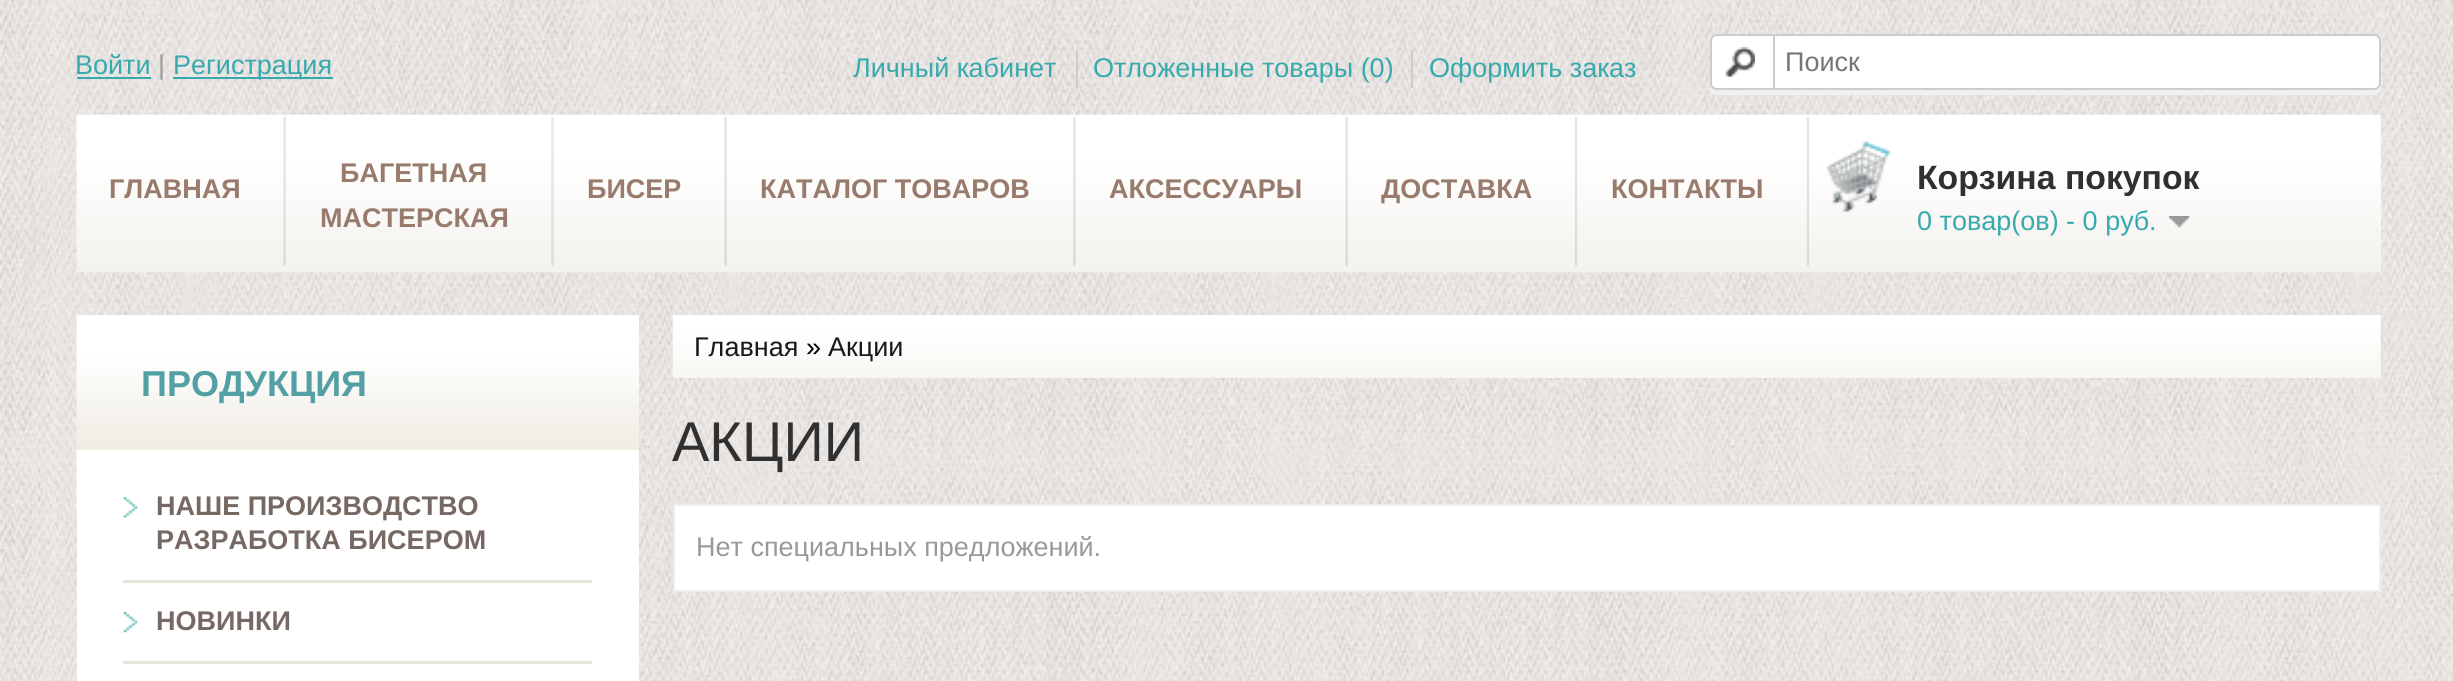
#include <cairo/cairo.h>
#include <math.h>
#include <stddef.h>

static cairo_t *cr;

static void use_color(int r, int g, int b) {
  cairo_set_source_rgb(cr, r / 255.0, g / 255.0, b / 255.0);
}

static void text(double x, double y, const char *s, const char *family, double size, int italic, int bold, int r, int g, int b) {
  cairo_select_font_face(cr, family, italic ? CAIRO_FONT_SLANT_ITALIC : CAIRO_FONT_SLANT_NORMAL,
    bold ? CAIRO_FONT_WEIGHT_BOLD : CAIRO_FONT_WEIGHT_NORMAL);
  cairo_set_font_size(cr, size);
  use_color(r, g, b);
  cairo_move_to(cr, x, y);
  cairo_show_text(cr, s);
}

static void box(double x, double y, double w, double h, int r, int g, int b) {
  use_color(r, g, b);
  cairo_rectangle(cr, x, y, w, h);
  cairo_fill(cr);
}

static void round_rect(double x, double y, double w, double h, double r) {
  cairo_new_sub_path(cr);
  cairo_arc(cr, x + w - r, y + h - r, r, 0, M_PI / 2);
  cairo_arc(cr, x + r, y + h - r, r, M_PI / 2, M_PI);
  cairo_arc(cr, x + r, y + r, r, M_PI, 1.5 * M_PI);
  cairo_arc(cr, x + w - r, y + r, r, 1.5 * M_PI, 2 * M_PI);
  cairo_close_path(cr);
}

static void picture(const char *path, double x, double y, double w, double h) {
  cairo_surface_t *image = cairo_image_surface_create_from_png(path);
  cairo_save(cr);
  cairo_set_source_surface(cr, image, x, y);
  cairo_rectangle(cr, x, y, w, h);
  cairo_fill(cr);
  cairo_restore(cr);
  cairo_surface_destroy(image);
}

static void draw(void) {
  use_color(255, 255, 255);
  cairo_paint(cr);
  picture("img_01.png", 0, 0, 2453, 681);
  box(77, 77, 74, 2, 55, 170, 174);
  box(173, 77, 160, 2, 55, 170, 174);
  box(1076, 50, 2, 38, 204, 204, 204);
  box(1411, 50, 2, 38, 204, 204, 204);
  use_color(240, 240, 240);
  cairo_new_path(cr);
  cairo_move_to(cr, 1710, 83);
  cairo_line_to(cr, 1710, 88);
  cairo_curve_to(cr, 1710, 92, 1713, 95, 1717, 95);
  cairo_line_to(cr, 2374, 95);
  cairo_curve_to(cr, 2378, 95, 2381, 92, 2381, 88);
  cairo_line_to(cr, 2381, 45);
  cairo_line_to(cr, 2380, 42);
  cairo_line_to(cr, 2380, 83);
  cairo_curve_to(cr, 2380, 87, 2377, 90, 2374, 90);
  cairo_line_to(cr, 1717, 90);
  cairo_curve_to(cr, 1713, 90, 1710, 87, 1710, 83);
  cairo_close_path(cr);
  cairo_fill(cr);
  use_color(255, 255, 255);
  round_rect(1711, 35, 669, 54, 6);
  cairo_fill_preserve(cr);
  use_color(204, 204, 204);
  cairo_stroke(cr);
  picture("img_02.png", 1725, 47, 30, 30);
  box(1773, 34, 2, 54, 204, 204, 204);
  box(2380, 115, 1, 157, 244, 242, 238);
  picture("img_05.png", 76, 114, 2305, 159);
  picture("img_03.png", 1827, 141, 63, 71);
  picture("img_04.png", 2169, 216, 21, 12);
  picture("img_06.png", 283, 117, 3, 149);
  picture("img_07.png", 551, 117, 3, 149);
  picture("img_06.png", 724, 117, 3, 149);
  picture("img_07.png", 1073, 117, 3, 149);
  picture("img_06.png", 1345, 117, 3, 149);
  picture("img_08.png", 1575, 117, 3, 149);
  picture("img_09.png", 1806, 117, 3, 149);
  picture("img_10.png", 76, 315, 563, 135);
  box(77, 450, 562, 231, 255, 255, 255);
  picture("img_11.png", 76, 450, 1, 61);
  picture("img_12.png", 123, 497, 15, 21);
  box(123, 580, 469, 3, 232, 228, 220);
  picture("img_13.png", 123, 612, 15, 21);
  box(123, 661, 469, 3, 232, 228, 220);
  box(2380, 315, 1, 63, 241, 238, 230);
  picture("img_14.png", 672, 315, 1709, 63);
  use_color(255, 255, 255);
  cairo_rectangle(cr, 674, 505, 1706, 86);
  cairo_fill_preserve(cr);
  use_color(238, 238, 238);
  cairo_stroke(cr);
  text(75, 74, "Войти", "Liberation Sans", 27, 0, 0, 55, 170, 174);
  text(158, 74, "|", "Liberation Sans", 27, 0, 0, 154, 153, 153);
  text(173, 74, "Регистрация", "Liberation Sans", 27, 0, 0, 55, 170, 174);
  text(853, 77, "Личный кабинет", "Liberation Sans", 27, 0, 0, 55, 170, 174);
  text(1093, 77, "Отложенные товары (0)", "Liberation Sans", 27, 0, 0, 55, 170, 174);
  text(1429, 77, "Оформить заказ", "Liberation Sans", 27, 0, 0, 55, 170, 174);
  text(1785, 71, "Поиск", "Liberation Sans", 27, 0, 0, 117, 117, 117);
  text(1917, 189, "Корзина покупок", "Liberation Sans", 33.75, 0, 1, 48, 48, 48);
  text(1917, 230, "0 товар(ов) - 0 руб.", "Liberation Sans", 27, 0, 0, 55, 170, 174);
  text(109, 198, "ГЛАВНАЯ", "Liberation Sans", 27, 0, 1, 152, 123, 108);
  text(340, 182, "БАГЕТНАЯ", "Liberation Sans", 27, 0, 1, 152, 123, 108);
  text(320, 227, "МАСТЕРСКАЯ", "Liberation Sans", 27, 0, 1, 152, 123, 108);
  text(587, 198, "БИСЕР", "Liberation Sans", 27, 0, 1, 152, 123, 108);
  text(760, 198, "КАТАЛОГ ТОВАРОВ", "Liberation Sans", 27, 0, 1, 152, 123, 108);
  text(1109, 198, "АКСЕССУАРЫ", "Liberation Sans", 27, 0, 1, 152, 123, 108);
  text(1381, 198, "ДОСТАВКА", "Liberation Sans", 27, 0, 1, 152, 123, 108);
  text(1611, 198, "КОНТАКТЫ", "Liberation Sans", 27, 0, 1, 152, 123, 108);
  text(141, 396, "ПРОДУКЦИЯ", "Liberation Sans", 36, 0, 1, 82, 160, 163);
  text(156, 515, "НАШЕ ПРОИЗВОДСТВО", "Liberation Sans", 27, 0, 1, 118, 104, 99);
  text(156, 549, "РАЗРАБОТКА БИСЕРОМ", "Liberation Sans", 27, 0, 1, 118, 104, 99);
  text(156, 630, "НОВИНКИ", "Liberation Sans", 27, 0, 1, 118, 104, 99);
  text(694, 356, "Главная", "Liberation Sans", 27, 0, 0, 25, 25, 25);
  text(806, 356, "»", "Liberation Sans", 27, 0, 0, 0, 0, 0);
  text(828, 356, "Акции", "Liberation Sans", 27, 0, 0, 25, 25, 25);
  text(672, 461, "АКЦИИ", "Liberation Sans", 56, 0, 0, 48, 48, 48);
  text(696, 556, "Нет специальных предложений.", "Liberation Sans", 27, 0, 0, 154, 153, 153);
}

int main(void) {
  cairo_surface_t *surface = cairo_image_surface_create(CAIRO_FORMAT_RGB24, 2453, 681);
  cr = cairo_create(surface);
  cairo_font_options_t *options = cairo_font_options_create();
  cairo_font_options_set_hint_metrics(options, CAIRO_HINT_METRICS_OFF);
  cairo_font_options_set_hint_style(options, CAIRO_HINT_STYLE_NONE);
  cairo_set_font_options(cr, options);
  cairo_set_miter_limit(cr, 4);
  draw();
  cairo_surface_write_to_png(surface, "out.png");
  cairo_font_options_destroy(options);
  cairo_destroy(cr);
  cairo_surface_destroy(surface);
  return 0;
}
